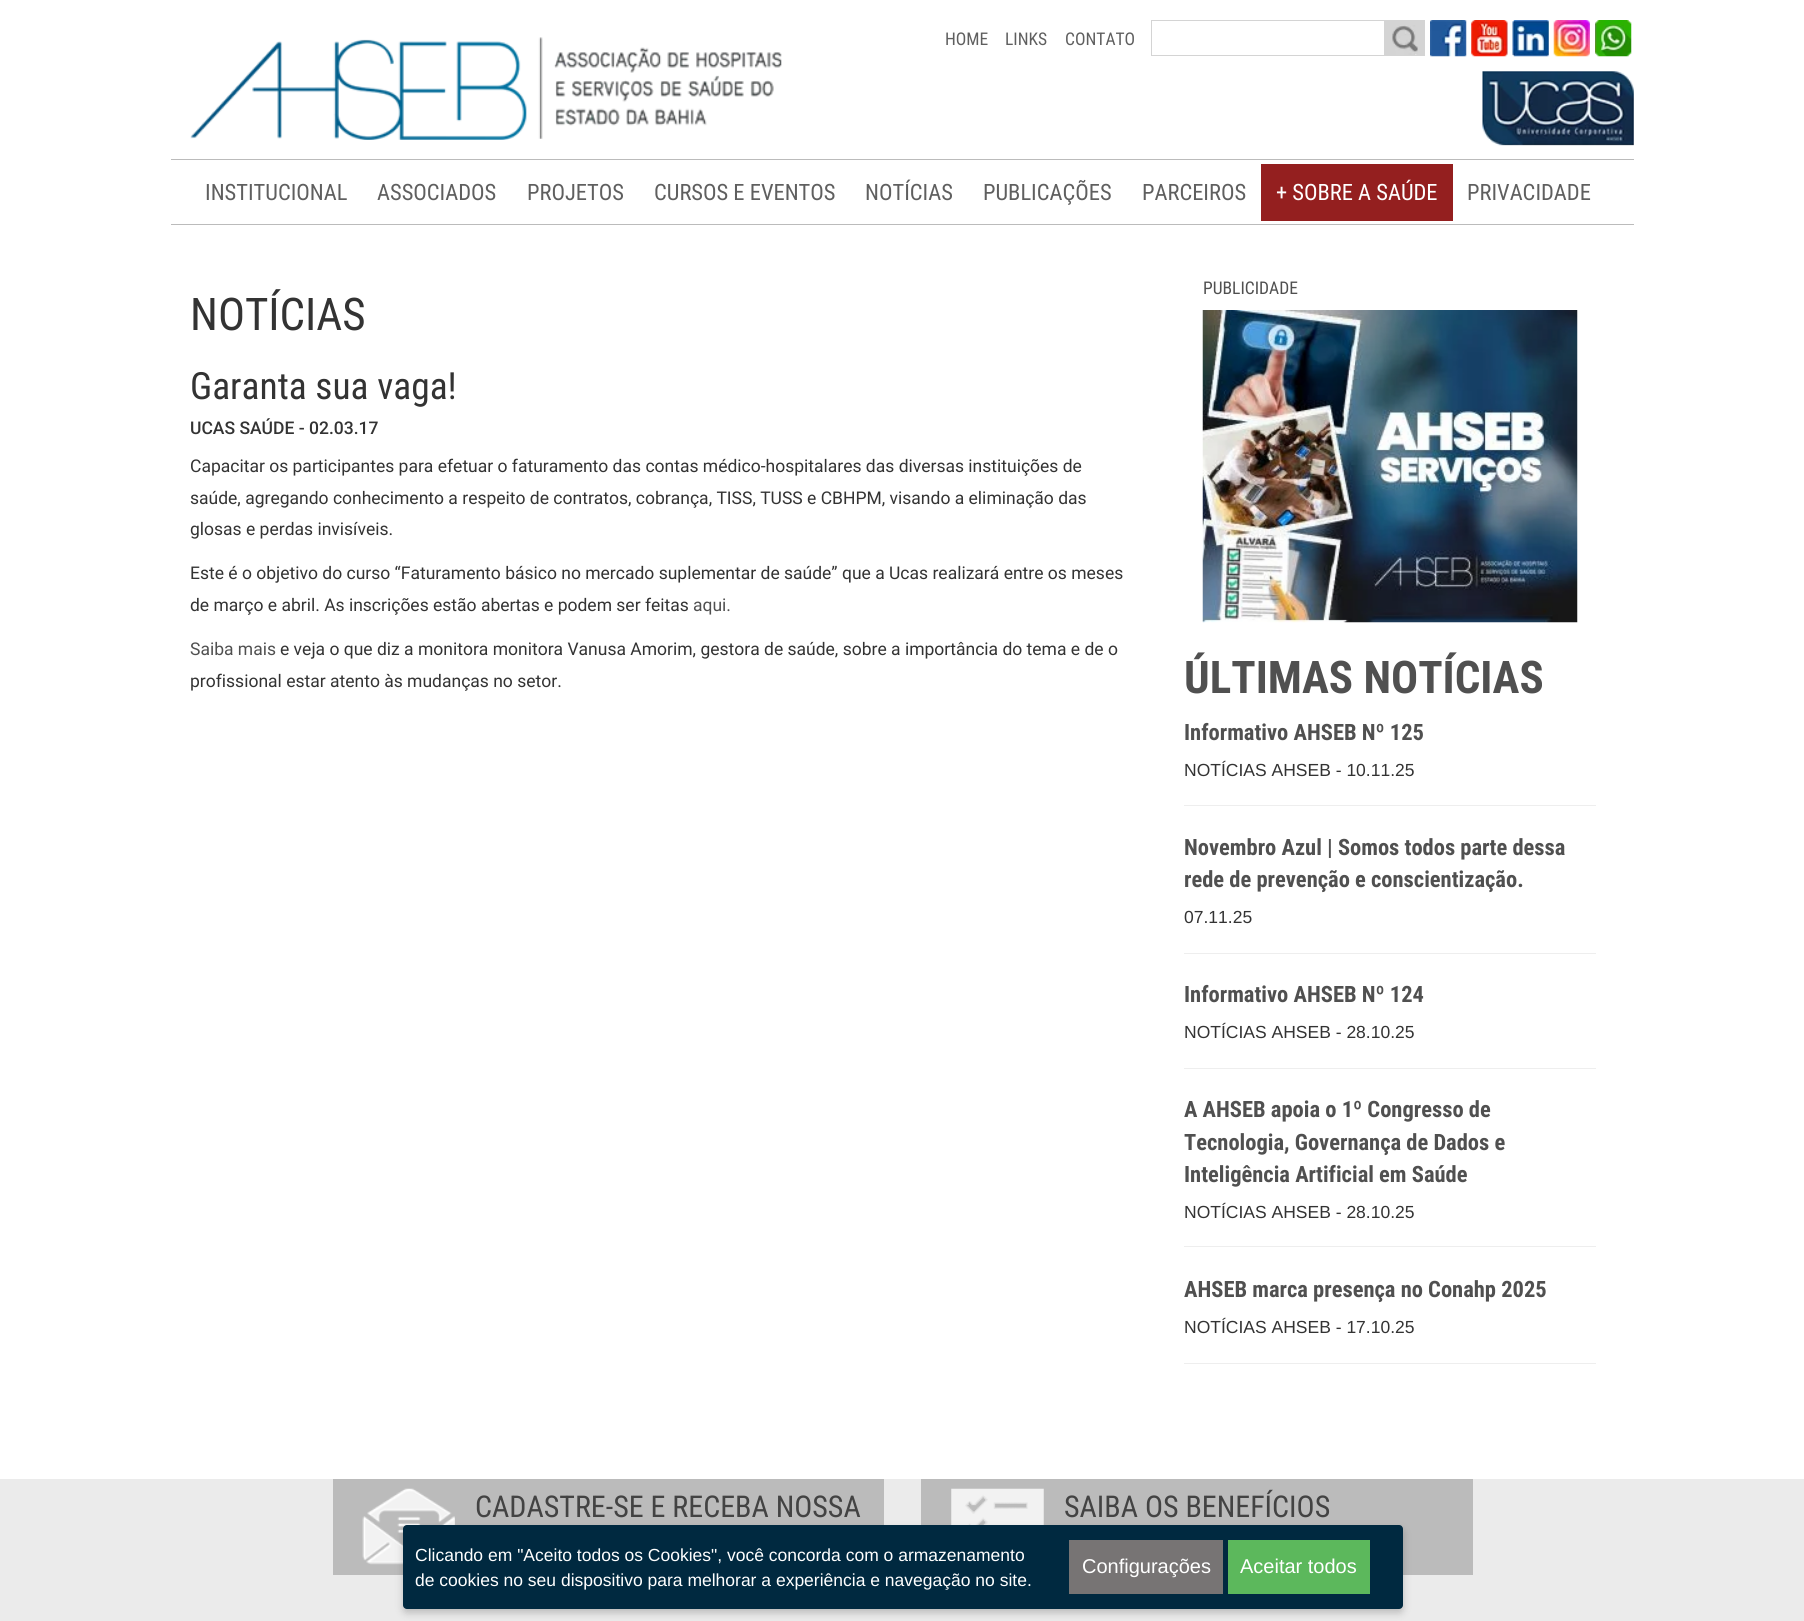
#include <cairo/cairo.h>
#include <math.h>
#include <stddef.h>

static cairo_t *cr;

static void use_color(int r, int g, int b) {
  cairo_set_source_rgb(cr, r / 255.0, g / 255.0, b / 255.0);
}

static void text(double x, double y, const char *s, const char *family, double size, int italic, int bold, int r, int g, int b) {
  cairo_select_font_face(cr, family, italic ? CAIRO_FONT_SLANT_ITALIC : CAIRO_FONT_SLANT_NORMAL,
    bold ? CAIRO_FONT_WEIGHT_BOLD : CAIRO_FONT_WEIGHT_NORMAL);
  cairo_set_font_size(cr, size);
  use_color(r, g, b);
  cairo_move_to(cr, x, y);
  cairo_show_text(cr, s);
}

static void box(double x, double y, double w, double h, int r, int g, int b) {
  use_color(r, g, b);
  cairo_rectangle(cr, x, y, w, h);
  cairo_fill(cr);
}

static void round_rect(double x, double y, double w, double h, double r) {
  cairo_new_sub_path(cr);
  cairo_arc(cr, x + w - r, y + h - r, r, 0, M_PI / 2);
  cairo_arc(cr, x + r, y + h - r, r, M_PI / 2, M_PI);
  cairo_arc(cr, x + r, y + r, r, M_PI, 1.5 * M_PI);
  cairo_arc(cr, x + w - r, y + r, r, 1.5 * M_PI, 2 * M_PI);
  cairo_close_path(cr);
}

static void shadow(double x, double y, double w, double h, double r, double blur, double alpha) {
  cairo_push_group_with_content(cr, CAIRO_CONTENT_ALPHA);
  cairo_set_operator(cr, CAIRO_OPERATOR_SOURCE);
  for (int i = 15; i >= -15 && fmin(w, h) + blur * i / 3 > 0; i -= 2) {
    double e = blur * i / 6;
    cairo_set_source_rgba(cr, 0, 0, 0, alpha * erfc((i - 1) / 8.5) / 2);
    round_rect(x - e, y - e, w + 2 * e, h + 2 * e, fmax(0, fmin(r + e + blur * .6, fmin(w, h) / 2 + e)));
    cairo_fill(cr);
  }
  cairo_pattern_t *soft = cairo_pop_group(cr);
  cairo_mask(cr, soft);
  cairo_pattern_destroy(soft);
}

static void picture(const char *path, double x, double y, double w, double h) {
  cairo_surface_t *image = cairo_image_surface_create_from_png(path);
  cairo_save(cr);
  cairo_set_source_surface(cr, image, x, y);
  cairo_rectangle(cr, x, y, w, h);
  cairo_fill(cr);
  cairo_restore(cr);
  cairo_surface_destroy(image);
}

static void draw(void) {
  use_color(255, 255, 255);
  cairo_paint(cr);
  picture("img_01.png", 190, 37, 592, 103);
  cairo_rectangle(cr, 1151.5, 20.5, 233, 35);
  use_color(212, 212, 212);
  cairo_set_line_width(cr, 1);
  cairo_stroke(cr);
  box(1385, 20, 40, 36, 212, 212, 212);
  picture("img_02.png", 1392, 25, 26, 30);
  picture("img_03.png", 1430, 20, 37, 37);
  picture("img_04.png", 1471, 20, 37, 37);
  picture("img_05.png", 1512, 20, 37, 37);
  picture("img_06.png", 1553, 20, 37, 37);
  picture("img_07.png", 1595, 20, 37, 37);
  picture("img_08.png", 1482, 71, 152, 75);
  box(171, 159, 1463, 1, 187, 187, 187);
  box(171, 224, 1463, 1, 187, 187, 187);
  box(1261, 164, 192, 57, 148, 31, 31);
  picture("img_09.png", 1202, 310, 376, 313);
  box(1184, 805, 412, 1, 238, 238, 238);
  box(1184, 953, 412, 1, 238, 238, 238);
  box(1184, 1068, 412, 1, 238, 238, 238);
  box(1184, 1246, 412, 1, 238, 238, 238);
  box(1184, 1363, 412, 1, 238, 238, 238);
  box(0, 1479, 1804, 142, 235, 235, 235);
  box(333, 1479, 551, 96, 187, 187, 187);
  picture("img_10.png", 362, 1488, 93, 77);
  box(921, 1479, 552, 96, 187, 187, 187);
  picture("img_11.png", 951, 1488, 93, 37);
  use_color(0, 0, 0);
  shadow(403, 1529, 1000, 84, 4, 4, 0.2);
  use_color(0, 41, 64);
  round_rect(403, 1525, 1000, 84, 4);
  cairo_fill(cr);
  box(1069, 1540, 154, 54, 119, 116, 116);
  box(1228, 1540, 142, 54, 92, 184, 92);
  text(945, 45, "HOME", "Roboto Condensed", 17.5, 0, 0, 95, 95, 95);
  text(1005, 45, "LINKS", "Roboto Condensed", 17.5, 0, 0, 95, 95, 95);
  text(1065, 45, "CONTATO", "Roboto Condensed", 17.5, 0, 0, 95, 95, 95);
  text(205, 200, "INSTITUCIONAL", "Roboto Condensed", 22.5, 0, 0, 95, 95, 95);
  text(377, 200, "ASSOCIADOS", "Roboto Condensed", 22.5, 0, 0, 95, 95, 95);
  text(527, 200, "PROJETOS", "Roboto Condensed", 22.5, 0, 0, 95, 95, 95);
  text(654, 200, "CURSOS E EVENTOS", "Roboto Condensed", 22.5, 0, 0, 95, 95, 95);
  text(865, 200, "NOTÍCIAS", "Roboto Condensed", 22.5, 0, 0, 95, 95, 95);
  text(983, 200, "PUBLICAÇÕES", "Roboto Condensed", 22.5, 0, 0, 95, 95, 95);
  text(1142, 200, "PARCEIROS", "Roboto Condensed", 22.5, 0, 0, 95, 95, 95);
  text(1276, 200, "+ SOBRE A SAÚDE", "Roboto Condensed", 22.5, 0, 0, 255, 255, 255);
  text(1467, 200, "PRIVACIDADE", "Roboto Condensed", 22.5, 0, 0, 95, 95, 95);
  text(190, 330, "NOTÍCIAS", "Roboto Condensed", 45, 0, 0, 51, 51, 51);
  text(190, 399, "Garanta sua vaga!", "Roboto Condensed", 37.5, 0, 0, 51, 51, 51);
  text(190, 434, "UCAS SAÚDE - 02.03.17", "Roboto Medium", 17.5, 0, 0, 51, 51, 51);
  text(190, 472, "Capacitar os participantes para efetuar o faturamento das contas médico-hospitalares das diversas instituições de", "Roboto", 17.5, 0, 0, 51, 51, 51);
  text(190, 504, "saúde, agregando conhecimento a respeito de contratos, cobrança, TISS, TUSS e CBHPM, visando a eliminação das", "Roboto", 17.5, 0, 0, 51, 51, 51);
  text(190, 535, "glosas e perdas invisíveis.", "Roboto", 17.5, 0, 0, 51, 51, 51);
  text(190, 579, "Este é o objetivo do curso “Faturamento básico no mercado suplementar de saúde” que a Ucas realizará entre os meses", "Roboto", 17.5, 0, 0, 51, 51, 51);
  text(190, 611, "de março e abril. As inscrições estão abertas e podem ser feitas", "Roboto", 17.5, 0, 0, 51, 51, 51);
  text(693, 611, "aqui.", "Roboto", 17.5, 0, 0, 80, 80, 80);
  text(190, 655, "Saiba mais", "Roboto", 17.5, 0, 0, 80, 80, 80);
  text(280, 655, "e veja o que diz a monitora monitora Vanusa Amorim, gestora de saúde, sobre a importância do tema e de o", "Roboto", 17.5, 0, 0, 51, 51, 51);
  text(190, 687, "profissional estar atento às mudanças no setor.", "Roboto", 17.5, 0, 0, 51, 51, 51);
  text(1203, 294, "PUBLICIDADE", "Roboto Condensed", 17.5, 0, 0, 80, 80, 80);
  text(1184, 693, "ÚLTIMAS NOTÍCIAS", "Roboto Condensed", 45, 0, 1, 80, 80, 80);
  text(1184, 740, "Informativo AHSEB Nº 125", "Roboto Condensed", 22.5, 0, 1, 80, 80, 80);
  text(1184, 776, "NOTÍCIAS AHSEB - 10.11.25", "Liberation Sans", 17.5, 0, 0, 51, 51, 51);
  text(1184, 855, "Novembro Azul | Somos todos parte dessa", "Roboto Condensed", 22.5, 0, 1, 80, 80, 80);
  text(1184, 887, "rede de prevenção e conscientização.", "Roboto Condensed", 22.5, 0, 1, 80, 80, 80);
  text(1184, 923, "07.11.25", "Liberation Sans", 17.5, 0, 0, 51, 51, 51);
  text(1184, 1002, "Informativo AHSEB Nº 124", "Roboto Condensed", 22.5, 0, 1, 80, 80, 80);
  text(1184, 1038, "NOTÍCIAS AHSEB - 28.10.25", "Liberation Sans", 17.5, 0, 0, 51, 51, 51);
  text(1184, 1117, "A AHSEB apoia o 1º Congresso de", "Roboto Condensed", 22.5, 0, 1, 80, 80, 80);
  text(1184, 1150, "Tecnologia, Governança de Dados e", "Roboto Condensed", 22.5, 0, 1, 80, 80, 80);
  text(1184, 1182, "Inteligência Artificial em Saúde", "Roboto Condensed", 22.5, 0, 1, 80, 80, 80);
  text(1184, 1218, "NOTÍCIAS AHSEB - 28.10.25", "Liberation Sans", 17.5, 0, 0, 51, 51, 51);
  text(1184, 1297, "AHSEB marca presença no Conahp 2025", "Roboto Condensed", 22.5, 0, 1, 80, 80, 80);
  text(1184, 1333, "NOTÍCIAS AHSEB - 17.10.25", "Liberation Sans", 17.5, 0, 0, 51, 51, 51);
  text(475, 1517, "CADASTRE-SE E RECEBA NOSSA", "Roboto Condensed", 30, 0, 0, 67, 67, 67);
  text(1064, 1517, "SAIBA OS BENEFÍCIOS", "Roboto Condensed", 30, 0, 0, 67, 67, 67);
  text(415, 1561, "Clicando em \"Aceito todos os Cookies\", você concorda com o armazenamento", "Liberation Sans", 17.5, 0, 0, 255, 255, 255);
  text(415, 1586, "de cookies no seu dispositivo para melhorar a experiência e navegação no site.", "Liberation Sans", 17.5, 0, 0, 255, 255, 255);
  text(1082, 1573, "Configurações", "Liberation Sans", 20, 0, 0, 255, 255, 255);
  text(1240, 1573, "Aceitar todos", "Liberation Sans", 20, 0, 0, 255, 255, 255);
}

int main(void) {
  cairo_surface_t *surface = cairo_image_surface_create(CAIRO_FORMAT_RGB24, 1804, 1621);
  cr = cairo_create(surface);
  cairo_font_options_t *options = cairo_font_options_create();
  cairo_font_options_set_hint_metrics(options, CAIRO_HINT_METRICS_OFF);
  cairo_font_options_set_hint_style(options, CAIRO_HINT_STYLE_NONE);
  cairo_set_font_options(cr, options);
  cairo_set_miter_limit(cr, 4);
  draw();
  cairo_surface_write_to_png(surface, "out.png");
  cairo_font_options_destroy(options);
  cairo_destroy(cr);
  cairo_surface_destroy(surface);
  return 0;
}
